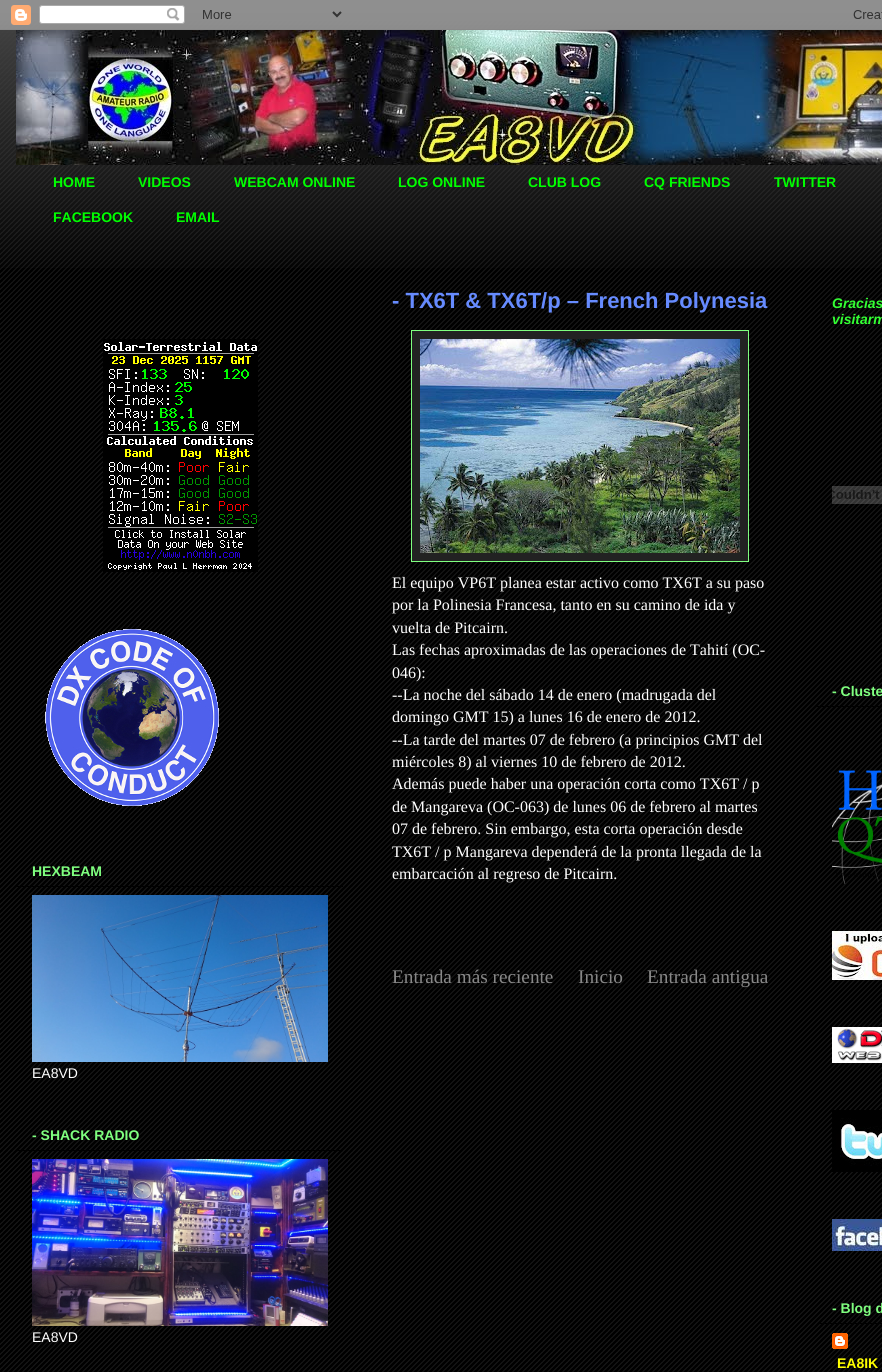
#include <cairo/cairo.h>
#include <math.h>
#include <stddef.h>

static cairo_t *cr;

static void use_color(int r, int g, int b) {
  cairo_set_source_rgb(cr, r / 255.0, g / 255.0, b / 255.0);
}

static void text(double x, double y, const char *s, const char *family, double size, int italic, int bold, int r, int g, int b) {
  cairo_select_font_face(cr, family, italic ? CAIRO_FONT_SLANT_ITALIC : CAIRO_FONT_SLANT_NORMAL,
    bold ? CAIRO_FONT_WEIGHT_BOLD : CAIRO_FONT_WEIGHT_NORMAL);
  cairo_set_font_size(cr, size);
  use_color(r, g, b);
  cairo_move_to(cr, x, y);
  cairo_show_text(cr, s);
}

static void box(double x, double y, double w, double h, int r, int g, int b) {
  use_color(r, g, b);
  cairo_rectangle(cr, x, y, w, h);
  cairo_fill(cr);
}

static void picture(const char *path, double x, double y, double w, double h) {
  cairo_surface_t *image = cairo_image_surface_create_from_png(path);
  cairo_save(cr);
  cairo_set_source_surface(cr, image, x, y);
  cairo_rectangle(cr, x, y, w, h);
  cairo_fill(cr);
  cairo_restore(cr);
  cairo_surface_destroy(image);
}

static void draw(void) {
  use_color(0, 0, 0);
  cairo_paint(cr);
  picture("img_01.png", 0, 13, 882, 1359);
  picture("img_02.png", 0, 0, 882, 268);
  picture("img_03.png", 0, 0, 882, 30);
  picture("img_04.png", 16, 30, 866, 135);
  picture("img_05.png", 103, 339, 155, 233);
  picture("img_06.png", 45, 629, 174, 177);
  box(17, 886, 326, 1, 0, 0, 0);
  picture("img_07.png", 32, 895, 296, 167);
  box(17, 1150, 326, 1, 0, 0, 0);
  picture("img_08.png", 32, 1159, 296, 167);
  use_color(34, 34, 34);
  cairo_rectangle(cr, 411.5, 330.5, 337, 231);
  cairo_fill_preserve(cr);
  use_color(127, 255, 127);
  cairo_set_line_width(cr, 1);
  cairo_stroke(cr);
  picture("img_09.png", 420, 339, 320, 214);
  picture("img_10.png", 832, 486, 50, 18);
  box(817, 706, 65, 1, 0, 0, 0);
  picture("img_11.png", 832, 770, 50, 114);
  picture("img_12.png", 832, 931, 50, 49);
  picture("img_13.png", 832, 1027, 50, 36);
  picture("img_14.png", 832, 1110, 50, 62);
  picture("img_15.png", 832, 1219, 50, 32);
  box(817, 1323, 65, 1, 0, 0, 0);
  picture("img_16.png", 832, 1333, 16, 16);
  text(53, 187, "HOME", "Liberation Sans", 14, 0, 1, 0, 255, 0);
  text(138, 187, "VIDEOS", "Liberation Sans", 14, 0, 1, 0, 255, 0);
  text(234, 187, "WEBCAM ONLINE", "Liberation Sans", 14, 0, 1, 0, 255, 0);
  text(398, 187, "LOG ONLINE", "Liberation Sans", 14, 0, 1, 0, 255, 0);
  text(528, 187, "CLUB LOG", "Liberation Sans", 14, 0, 1, 0, 255, 0);
  text(644, 187, "CQ FRIENDS", "Liberation Sans", 14, 0, 1, 0, 255, 0);
  text(774, 187, "TWITTER", "Liberation Sans", 14, 0, 1, 0, 255, 0);
  text(53, 222, "FACEBOOK", "Liberation Sans", 14, 0, 1, 0, 255, 0);
  text(176, 222, "EMAIL", "Liberation Sans", 14, 0, 1, 0, 255, 0);
  text(32, 876, "HEXBEAM", "Liberation Sans", 14, 0, 1, 127, 255, 127);
  text(32, 1078, "EA8VD", "Liberation Sans", 14, 0, 0, 255, 255, 255);
  text(32, 1140, "- SHACK RADIO", "Liberation Sans", 14, 0, 1, 127, 255, 127);
  text(32, 1342, "EA8VD", "Liberation Sans", 14, 0, 0, 255, 255, 255);
  text(392, 308, "- TX6T & TX6T/p – French Polynesia", "Liberation Sans", 22, 0, 1, 102, 139, 255);
  text(392, 588, "El equipo VP6T planea estar activo como TX6T a su paso", "Liberation Serif", 16, 0, 0, 255, 255, 255);
  text(392, 610, "por la Polinesia Francesa, tanto en su camino de ida y", "Liberation Serif", 16, 0, 0, 255, 255, 255);
  text(392, 633, "vuelta de Pitcairn.", "Liberation Serif", 16, 0, 0, 255, 255, 255);
  text(392, 655, "Las fechas aproximadas de las operaciones de Tahití (OC-", "Liberation Serif", 16, 0, 0, 255, 255, 255);
  text(392, 678, "046):", "Liberation Serif", 16, 0, 0, 255, 255, 255);
  text(392, 700, "--La noche del sábado 14 de enero (madrugada del", "Liberation Serif", 16, 0, 0, 255, 255, 255);
  text(392, 722, "domingo GMT 15) a lunes 16 de enero de 2012.", "Liberation Serif", 16, 0, 0, 255, 255, 255);
  text(392, 745, "--La tarde del martes 07 de febrero (a principios GMT del", "Liberation Serif", 16, 0, 0, 255, 255, 255);
  text(392, 767, "miércoles 8) al viernes 10 de febrero de 2012.", "Liberation Serif", 16, 0, 0, 255, 255, 255);
  text(392, 789, "Además puede haber una operación corta como TX6T / p", "Liberation Serif", 16, 0, 0, 255, 255, 255);
  text(392, 812, "de Mangareva (OC-063) de lunes 06 de febrero al martes", "Liberation Serif", 16, 0, 0, 255, 255, 255);
  text(392, 834, "07 de febrero. Sin embargo, esta corta operación desde", "Liberation Serif", 16, 0, 0, 255, 255, 255);
  text(392, 857, "TX6T / p Mangareva dependerá de la pronta llegada de la", "Liberation Serif", 16, 0, 0, 255, 255, 255);
  text(392, 879, "embarcación al regreso de Pitcairn.", "Liberation Serif", 16, 0, 0, 255, 255, 255);
  text(392, 983, "Entrada más reciente", "Liberation Serif", 19.25, 0, 0, 136, 136, 136);
  text(578, 983, "Inicio", "Liberation Serif", 19.25, 0, 0, 136, 136, 136);
  text(647, 983, "Entrada antigua", "Liberation Serif", 19.25, 0, 0, 136, 136, 136);
  text(832, 308, "Gracias", "Liberation Sans", 14, 1, 1, 51, 255, 51);
  text(832, 324, "visitarm", "Liberation Sans", 14, 1, 1, 51, 255, 51);
  text(832, 696, "- Cluste", "Liberation Sans", 14, 0, 1, 127, 255, 127);
  text(832, 1313, "- Blog d", "Liberation Sans", 14, 0, 1, 127, 255, 127);
  text(837, 1368, "EA8IK", "Liberation Sans", 14, 0, 1, 255, 255, 0);
}

int main(void) {
  cairo_surface_t *surface = cairo_image_surface_create(CAIRO_FORMAT_RGB24, 882, 1372);
  cr = cairo_create(surface);
  cairo_font_options_t *options = cairo_font_options_create();
  cairo_font_options_set_hint_metrics(options, CAIRO_HINT_METRICS_OFF);
  cairo_font_options_set_hint_style(options, CAIRO_HINT_STYLE_NONE);
  cairo_set_font_options(cr, options);
  cairo_set_miter_limit(cr, 4);
  draw();
  cairo_surface_write_to_png(surface, "out.png");
  cairo_font_options_destroy(options);
  cairo_destroy(cr);
  cairo_surface_destroy(surface);
  return 0;
}
